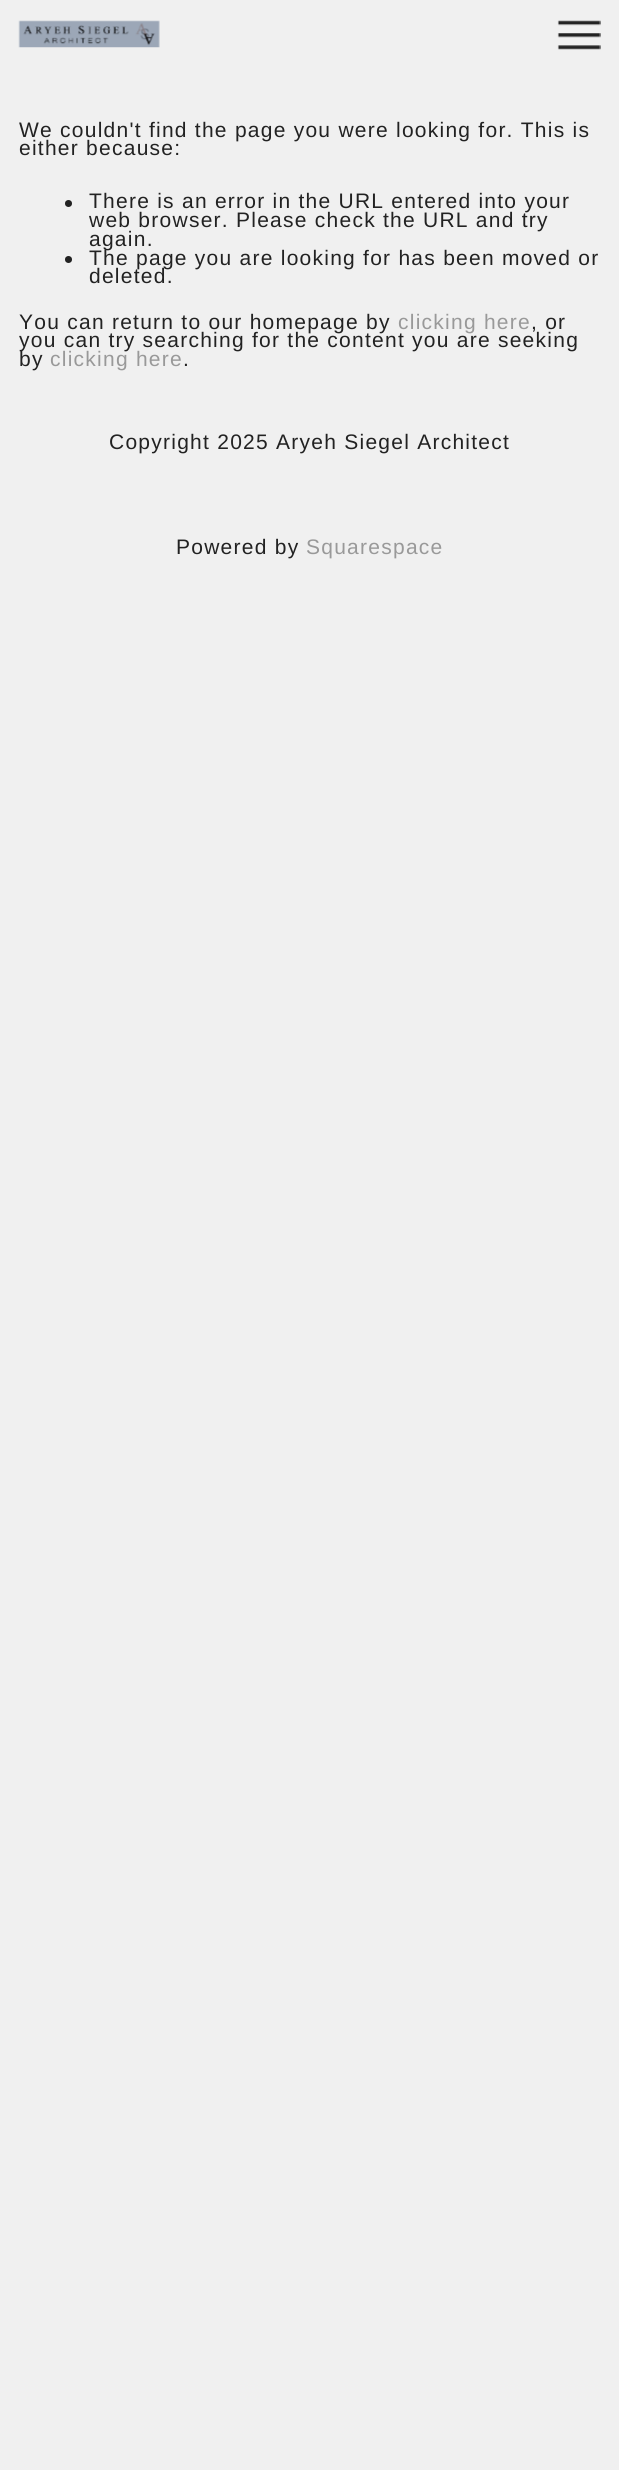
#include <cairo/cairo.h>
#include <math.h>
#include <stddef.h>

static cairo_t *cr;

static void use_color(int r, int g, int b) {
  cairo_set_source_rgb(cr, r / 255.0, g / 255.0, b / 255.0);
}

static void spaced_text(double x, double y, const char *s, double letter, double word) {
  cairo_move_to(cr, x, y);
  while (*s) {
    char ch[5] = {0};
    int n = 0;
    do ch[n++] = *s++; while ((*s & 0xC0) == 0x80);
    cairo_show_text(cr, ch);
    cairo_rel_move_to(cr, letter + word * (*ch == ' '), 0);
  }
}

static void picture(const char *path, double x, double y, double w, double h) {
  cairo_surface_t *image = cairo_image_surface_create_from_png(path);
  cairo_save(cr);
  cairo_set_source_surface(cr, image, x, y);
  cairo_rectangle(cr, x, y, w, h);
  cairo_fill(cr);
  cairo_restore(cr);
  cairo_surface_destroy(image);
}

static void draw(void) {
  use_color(240, 240, 240);
  cairo_paint(cr);
  picture("img_01.png", 18, 20, 142, 28);
  picture("img_02.png", 557, 20, 44, 30);
  use_color(34, 34, 34);
  cairo_arc(cr, 68.5, 203.5, 3.5, 0, 2 * M_PI);
  cairo_fill(cr);
  cairo_arc(cr, 68.5, 259.5, 3.5, 0, 2 * M_PI);
  cairo_fill(cr);
  cairo_select_font_face(cr, "Liberation Sans", CAIRO_FONT_SLANT_NORMAL, CAIRO_FONT_WEIGHT_NORMAL);
  cairo_set_font_size(cr, 21);
  spaced_text(19, 137, "We couldn't find the page you were looking for. This is", 1.25, 0);
  spaced_text(19, 155, "either because:", 1.25, 0);
  spaced_text(89, 208, "There is an error in the URL entered into your", 1.25, 0);
  spaced_text(89, 227, "web browser. Please check the URL and try", 1.25, 0);
  spaced_text(89, 246, "again.", 1.25, 0);
  spaced_text(89, 265, "The page you are looking for has been moved or", 1.25, 0);
  spaced_text(89, 283, "deleted.", 1.25, 0);
  spaced_text(19, 329, "You can return to our homepage by", 1.25, 0);
  use_color(153, 153, 153);
  spaced_text(398, 329, "clicking here", 1.25, 0);
  use_color(34, 34, 34);
  spaced_text(531, 329, ", or", 1.25, 0);
  spaced_text(19, 347, "you can try searching for the content you are seeking", 1.25, 0);
  spaced_text(19, 366, "by", 1.25, 0);
  use_color(153, 153, 153);
  spaced_text(50, 366, "clicking here", 1.25, 0);
  use_color(34, 34, 34);
  spaced_text(183, 366, ".", 1.25, 0);
  spaced_text(109, 449, "Copyright 2025 Aryeh Siegel Architect", 1.25, 0);
  spaced_text(176, 554, "Powered by", 1.25, 0);
  use_color(153, 153, 153);
  spaced_text(306, 554, "Squarespace", 1.25, 0);
}

int main(void) {
  cairo_surface_t *surface = cairo_image_surface_create(CAIRO_FORMAT_RGB24, 619, 2470);
  cr = cairo_create(surface);
  cairo_font_options_t *options = cairo_font_options_create();
  cairo_font_options_set_hint_metrics(options, CAIRO_HINT_METRICS_OFF);
  cairo_font_options_set_hint_style(options, CAIRO_HINT_STYLE_NONE);
  cairo_set_font_options(cr, options);
  cairo_set_miter_limit(cr, 4);
  draw();
  cairo_surface_write_to_png(surface, "out.png");
  cairo_font_options_destroy(options);
  cairo_destroy(cr);
  cairo_surface_destroy(surface);
  return 0;
}
